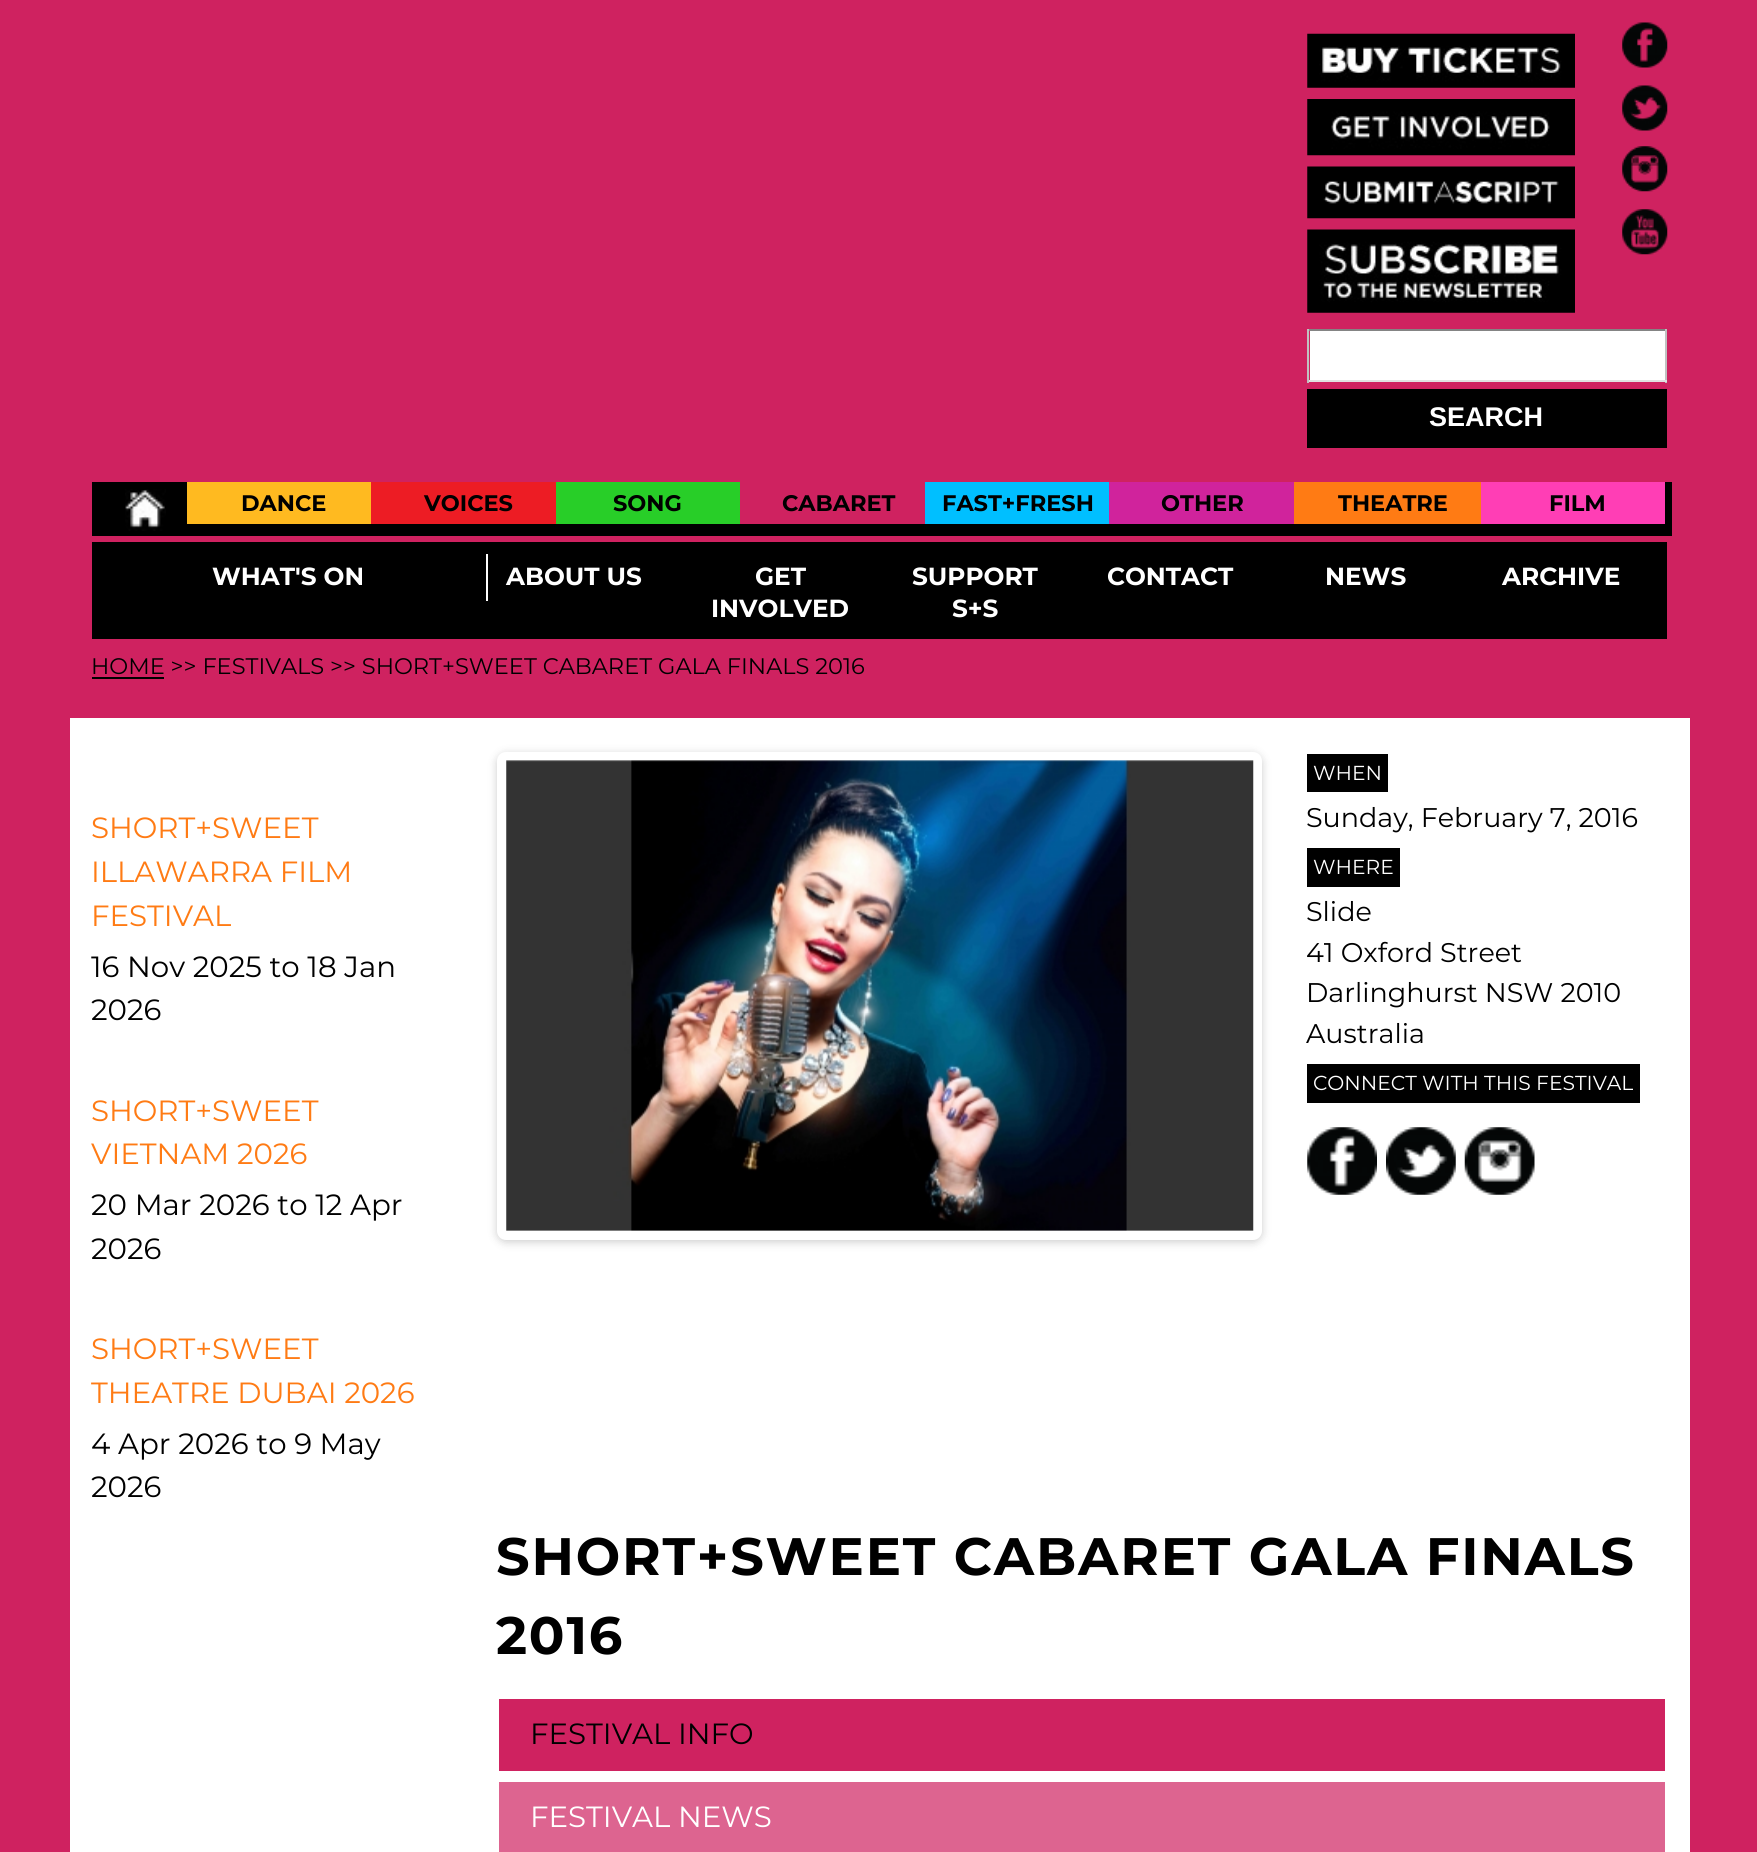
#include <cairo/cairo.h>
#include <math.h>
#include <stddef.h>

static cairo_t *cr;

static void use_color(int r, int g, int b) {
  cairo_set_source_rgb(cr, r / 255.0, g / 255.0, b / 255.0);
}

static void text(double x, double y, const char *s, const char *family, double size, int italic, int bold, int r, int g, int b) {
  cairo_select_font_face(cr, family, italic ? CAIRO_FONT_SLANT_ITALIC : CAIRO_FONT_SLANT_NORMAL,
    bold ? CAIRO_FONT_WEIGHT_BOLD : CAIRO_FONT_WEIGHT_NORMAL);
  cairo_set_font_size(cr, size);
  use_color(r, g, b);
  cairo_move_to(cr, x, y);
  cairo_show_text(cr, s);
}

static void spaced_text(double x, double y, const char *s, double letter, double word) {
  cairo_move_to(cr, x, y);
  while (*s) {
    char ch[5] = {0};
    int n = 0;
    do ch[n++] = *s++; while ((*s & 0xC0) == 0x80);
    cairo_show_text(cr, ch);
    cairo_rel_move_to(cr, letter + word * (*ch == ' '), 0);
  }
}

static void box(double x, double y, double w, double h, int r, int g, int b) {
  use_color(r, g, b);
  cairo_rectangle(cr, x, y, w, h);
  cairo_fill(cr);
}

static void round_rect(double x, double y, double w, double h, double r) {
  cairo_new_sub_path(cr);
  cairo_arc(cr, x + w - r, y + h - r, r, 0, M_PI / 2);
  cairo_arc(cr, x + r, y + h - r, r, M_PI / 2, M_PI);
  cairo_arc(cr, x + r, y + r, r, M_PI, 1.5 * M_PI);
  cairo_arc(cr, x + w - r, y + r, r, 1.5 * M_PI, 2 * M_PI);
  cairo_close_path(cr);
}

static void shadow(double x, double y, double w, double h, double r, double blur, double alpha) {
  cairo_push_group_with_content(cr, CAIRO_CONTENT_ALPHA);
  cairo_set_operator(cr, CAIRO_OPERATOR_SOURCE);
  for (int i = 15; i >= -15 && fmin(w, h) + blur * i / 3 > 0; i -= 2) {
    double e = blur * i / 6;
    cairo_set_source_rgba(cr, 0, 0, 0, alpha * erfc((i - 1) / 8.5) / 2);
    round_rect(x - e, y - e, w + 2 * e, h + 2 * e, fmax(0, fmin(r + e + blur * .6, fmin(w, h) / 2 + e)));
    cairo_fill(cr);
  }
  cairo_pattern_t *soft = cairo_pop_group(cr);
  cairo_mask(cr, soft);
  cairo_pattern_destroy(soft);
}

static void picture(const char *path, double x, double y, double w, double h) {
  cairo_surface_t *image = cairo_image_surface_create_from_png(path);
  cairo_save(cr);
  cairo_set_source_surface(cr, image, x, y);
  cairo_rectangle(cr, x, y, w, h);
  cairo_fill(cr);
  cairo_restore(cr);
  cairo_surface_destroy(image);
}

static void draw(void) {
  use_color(207, 34, 96);
  cairo_paint(cr);
  picture("img_01.png", 1622, 22, 46, 46);
  picture("img_02.png", 1622, 85, 46, 46);
  picture("img_03.png", 1622, 146, 46, 46);
  picture("img_04.png", 1622, 209, 46, 46);
  picture("img_05.png", 1307, 33, 268, 55);
  picture("img_06.png", 1307, 99, 268, 57);
  picture("img_07.png", 1307, 166, 268, 53);
  picture("img_08.png", 1307, 229, 268, 84);
  box(1310, 331, 355, 49, 255, 255, 255);
  box(1307, 329, 360, 2, 132, 132, 132);
  box(1665, 329, 2, 54, 193, 193, 193);
  box(1307, 380, 360, 2, 225, 225, 225);
  box(1307, 329, 2, 54, 193, 193, 193);
  box(1307, 389, 360, 59, 0, 0, 0);
  box(92, 482, 1580, 54, 0, 0, 0);
  picture("img_09.png", 125, 489, 41, 42);
  box(187, 482, 184, 42, 255, 186, 32);
  box(371, 482, 185, 42, 237, 28, 36);
  box(556, 482, 184, 42, 40, 206, 40);
  box(740, 482, 185, 42, 207, 34, 96);
  box(925, 482, 184, 42, 0, 191, 255);
  box(1109, 482, 185, 42, 208, 35, 156);
  box(1294, 482, 187, 42, 255, 123, 20);
  box(1481, 482, 184, 42, 255, 62, 181);
  box(92, 542, 1575, 97, 0, 0, 0);
  box(486, 554, 2, 47, 255, 255, 255);
  box(92, 677, 72, 2, 0, 0, 0);
  box(70, 718, 1620, 1134, 255, 255, 255);
  use_color(0, 0, 0);
  shadow(497, 754, 765, 488, 9, 4.5, 0.2);
  use_color(255, 255, 255);
  round_rect(501.5, 756.5, 756, 479, 4.5);
  cairo_fill_preserve(cr);
  cairo_set_line_width(cr, 9);
  cairo_stroke(cr);
  picture("img_10.png", 506, 760, 748, 471);
  box(1307, 754, 81, 38, 0, 0, 0);
  box(1307, 848, 93, 39, 0, 0, 0);
  box(1307, 1064, 333, 39, 0, 0, 0);
  picture("img_11.png", 1307, 1127, 70, 68);
  picture("img_12.png", 1386, 1127, 70, 68);
  picture("img_13.png", 1464, 1127, 71, 68);
  box(499, 1699, 1166, 72, 207, 34, 96);
  box(499, 1782, 1166, 70, 221, 100, 144);
  text(1429, 426, "SEARCH", "Liberation Sans", 27, 0, 1, 255, 255, 255);
  text(241, 511, "DANCE", "Montserrat", 22.5, 0, 1, 0, 0, 0);
  text(424, 511, "VOICES", "Montserrat", 22.5, 0, 1, 0, 0, 0);
  text(613, 511, "SONG", "Montserrat", 22.5, 0, 1, 0, 0, 0);
  text(782, 511, "CABARET", "Montserrat", 22.5, 0, 1, 0, 0, 0);
  text(942, 511, "FAST+FRESH", "Montserrat", 22.5, 0, 1, 0, 0, 0);
  text(1161, 511, "OTHER", "Montserrat", 22.5, 0, 1, 0, 0, 0);
  text(1338, 511, "THEATRE", "Montserrat", 22.5, 0, 1, 0, 0, 0);
  text(1549, 511, "FILM", "Montserrat", 22.5, 0, 1, 0, 0, 0);
  text(212, 585, "WHAT'S ON", "Montserrat", 24.75, 0, 1, 255, 255, 255);
  text(506, 585, "ABOUT US", "Montserrat", 24.75, 0, 1, 255, 255, 255);
  text(755, 585, "GET", "Montserrat", 24.75, 0, 1, 255, 255, 255);
  text(711, 617, "INVOLVED", "Montserrat", 24.75, 0, 1, 255, 255, 255);
  text(912, 585, "SUPPORT", "Montserrat", 24.75, 0, 1, 255, 255, 255);
  text(952, 617, "S+S", "Montserrat", 24.75, 0, 1, 255, 255, 255);
  text(1107, 585, "CONTACT", "Montserrat", 24.75, 0, 1, 255, 255, 255);
  text(1325, 585, "NEWS", "Montserrat", 24.75, 0, 1, 255, 255, 255);
  text(1502, 585, "ARCHIVE", "Montserrat", 24.75, 0, 1, 255, 255, 255);
  text(91, 674, "HOME >> FESTIVALS >> SHORT+SWEET CABARET GALA FINALS 2016", "Montserrat", 22.5, 0, 0, 0, 0, 0);
  text(91, 838, "SHORT+SWEET", "Montserrat", 29.25, 0, 0, 255, 123, 20);
  text(91, 882, "ILLAWARRA FILM", "Montserrat", 29.25, 0, 0, 255, 123, 20);
  text(91, 926, "FESTIVAL", "Montserrat", 29.25, 0, 0, 255, 123, 20);
  text(91, 977, "16 Nov 2025 to 18 Jan", "Montserrat", 29.25, 0, 0, 0, 0, 0);
  text(91, 1020, "2026", "Montserrat", 29.25, 0, 0, 0, 0, 0);
  text(91, 1121, "SHORT+SWEET", "Montserrat", 29.25, 0, 0, 255, 123, 20);
  text(91, 1164, "VIETNAM 2026", "Montserrat", 29.25, 0, 0, 255, 123, 20);
  text(91, 1215, "20 Mar 2026 to 12 Apr", "Montserrat", 29.25, 0, 0, 0, 0, 0);
  text(91, 1259, "2026", "Montserrat", 29.25, 0, 0, 0, 0, 0);
  text(91, 1359, "SHORT+SWEET", "Montserrat", 29.25, 0, 0, 255, 123, 20);
  text(91, 1403, "THEATRE DUBAI 2026", "Montserrat", 29.25, 0, 0, 255, 123, 20);
  text(91, 1454, "4 Apr 2026 to 9 May", "Montserrat", 29.25, 0, 0, 0, 0, 0);
  text(91, 1497, "2026", "Montserrat", 29.25, 0, 0, 0, 0, 0);
  text(1313, 780, "WHEN", "Montserrat", 20.25, 0, 0, 255, 255, 255);
  text(1306, 827, "Sunday, February 7, 2016", "Montserrat", 27, 0, 0, 0, 0, 0);
  text(1313, 874, "WHERE", "Montserrat", 20.25, 0, 0, 255, 255, 255);
  text(1306, 921, "Slide", "Montserrat", 27, 0, 0, 0, 0, 0);
  text(1306, 962, "41 Oxford Street", "Montserrat", 27, 0, 0, 0, 0, 0);
  text(1306, 1002, "Darlinghurst NSW 2010", "Montserrat", 27, 0, 0, 0, 0, 0);
  text(1306, 1043, "Australia", "Montserrat", 27, 0, 0, 0, 0, 0);
  text(1313, 1090, "CONNECT WITH THIS FESTIVAL", "Montserrat", 20.25, 0, 0, 255, 255, 255);
  cairo_select_font_face(cr, "Montserrat", CAIRO_FONT_SLANT_NORMAL, CAIRO_FONT_WEIGHT_BOLD);
  cairo_set_font_size(cr, 52.65);
  use_color(0, 0, 0);
  spaced_text(496, 1575, "SHORT+SWEET CABARET GALA FINALS", 1.8, 0);
  spaced_text(496, 1654, "2016", 1.8, 0);
  text(530, 1744, "FESTIVAL INFO", "Montserrat", 29.25, 0, 0, 0, 0, 0);
  text(530, 1827, "FESTIVAL NEWS", "Montserrat", 29.25, 0, 0, 255, 255, 255);
}

int main(void) {
  cairo_surface_t *surface = cairo_image_surface_create(CAIRO_FORMAT_RGB24, 1757, 1852);
  cr = cairo_create(surface);
  cairo_font_options_t *options = cairo_font_options_create();
  cairo_font_options_set_hint_metrics(options, CAIRO_HINT_METRICS_OFF);
  cairo_font_options_set_hint_style(options, CAIRO_HINT_STYLE_NONE);
  cairo_set_font_options(cr, options);
  cairo_set_miter_limit(cr, 4);
  draw();
  cairo_surface_write_to_png(surface, "out.png");
  cairo_font_options_destroy(options);
  cairo_destroy(cr);
  cairo_surface_destroy(surface);
  return 0;
}
